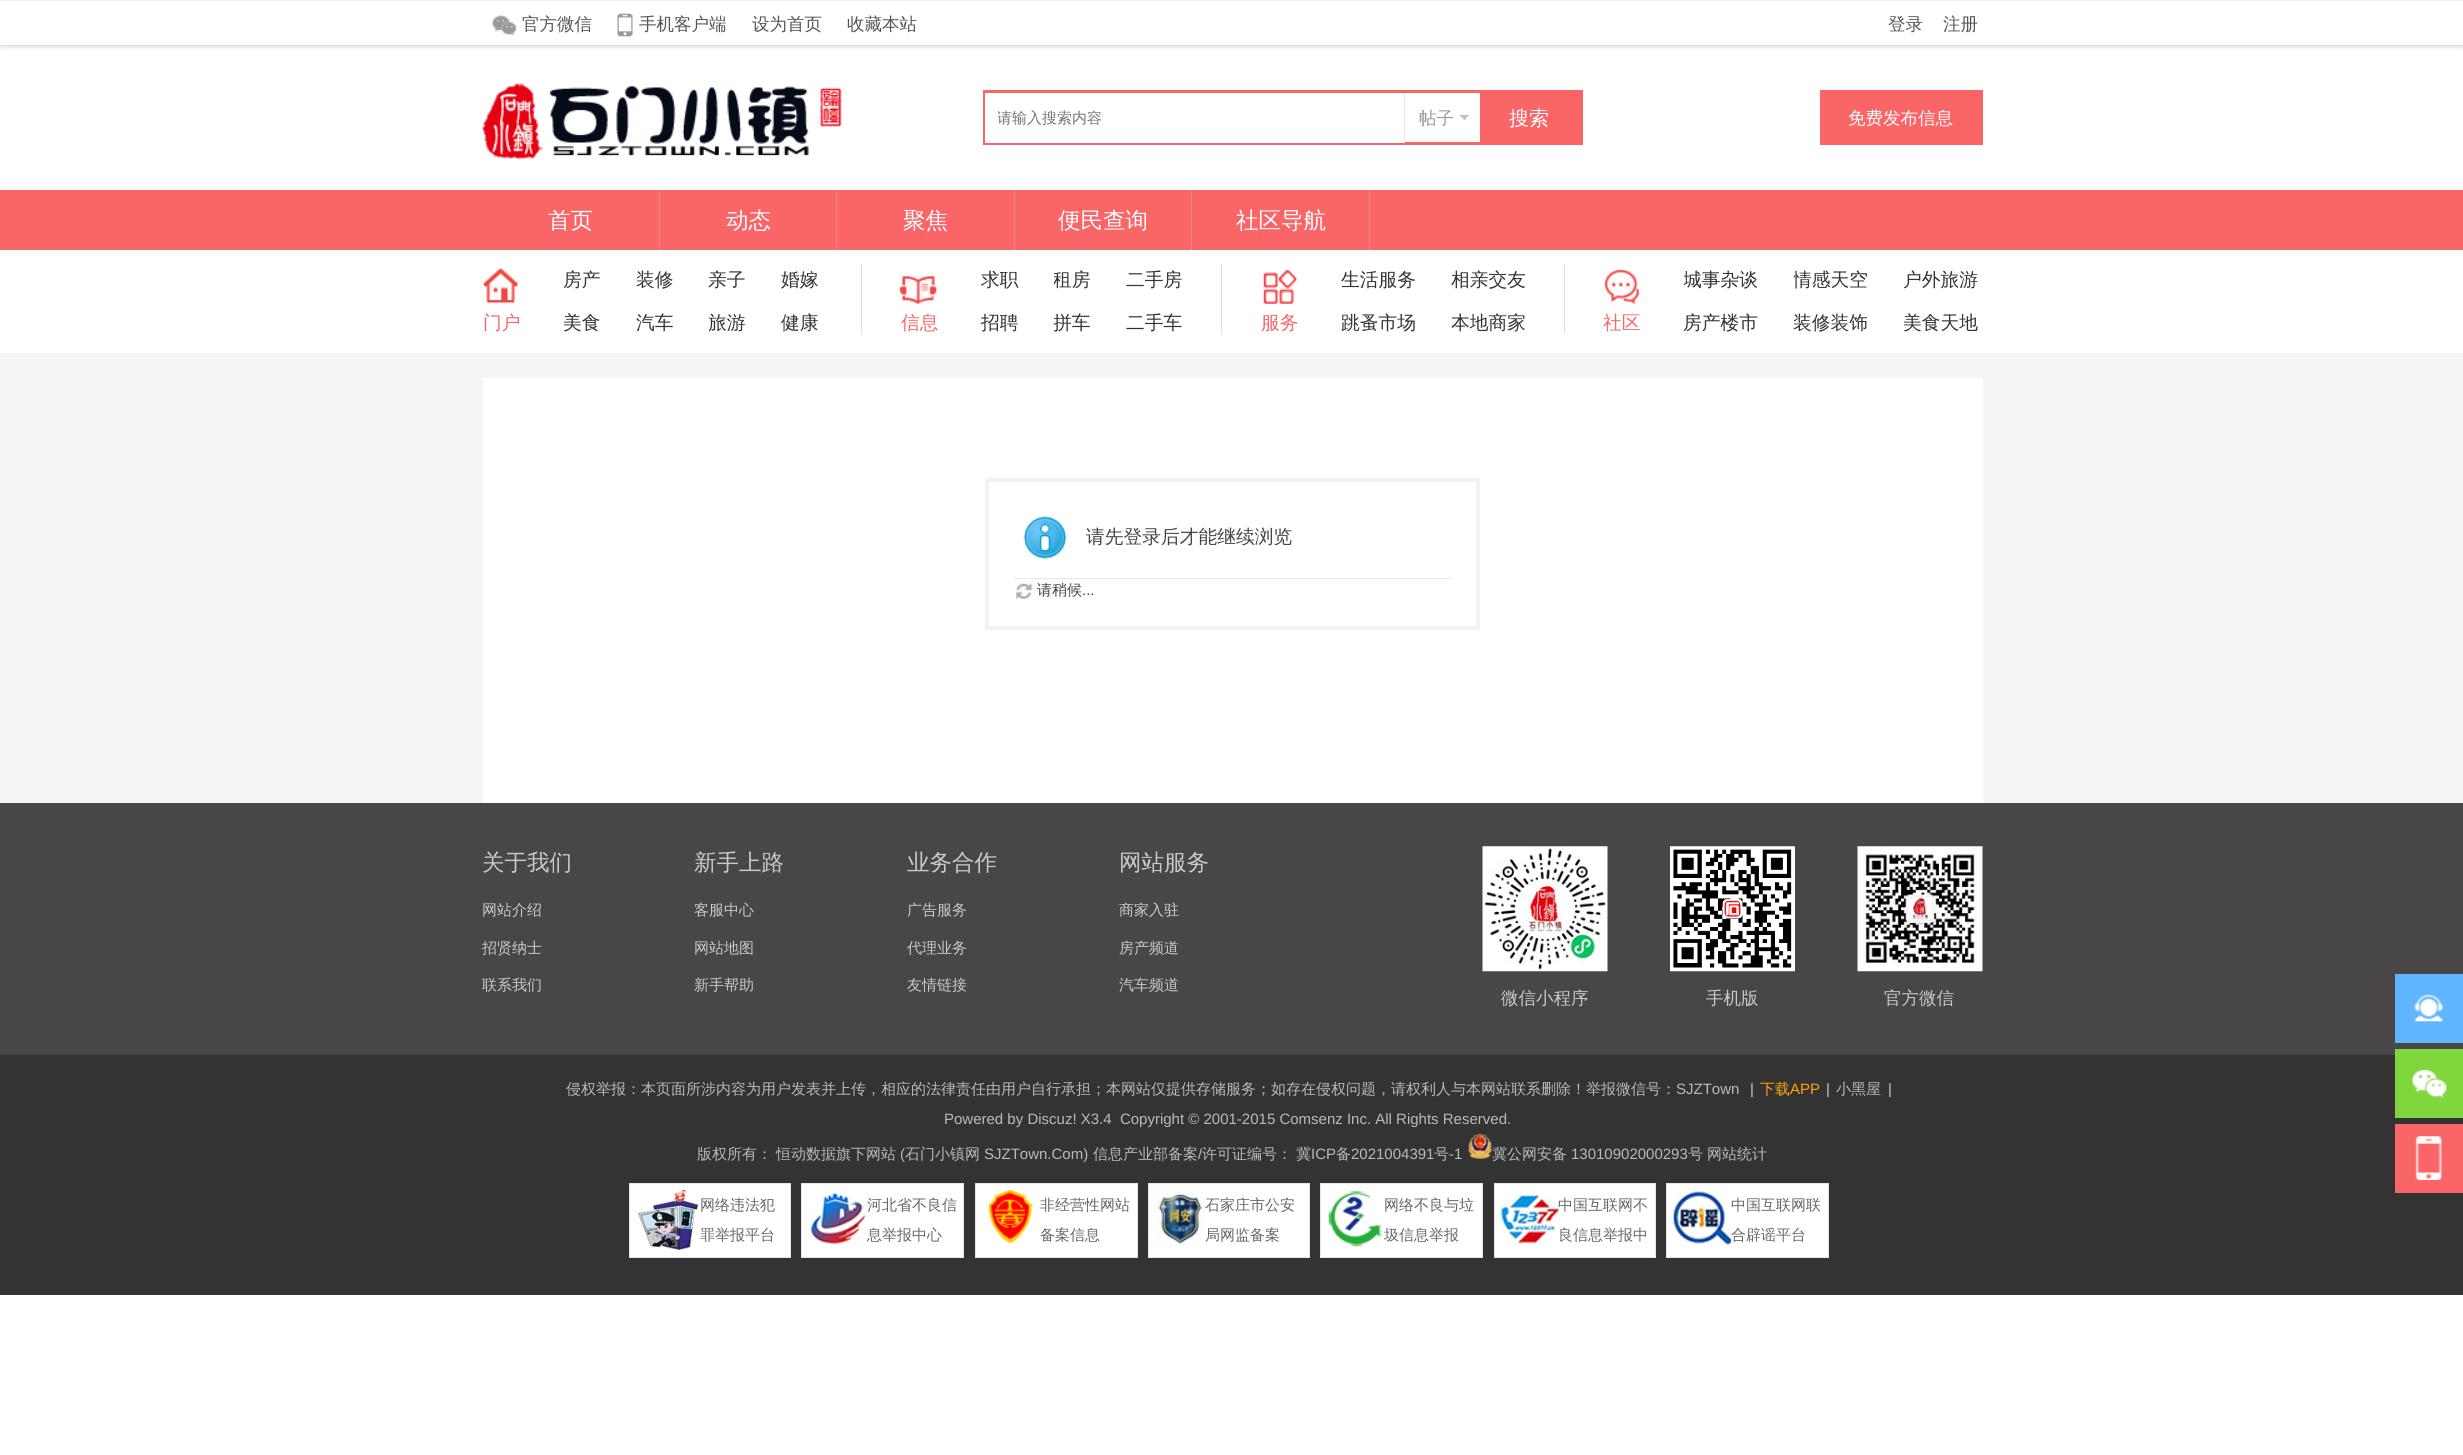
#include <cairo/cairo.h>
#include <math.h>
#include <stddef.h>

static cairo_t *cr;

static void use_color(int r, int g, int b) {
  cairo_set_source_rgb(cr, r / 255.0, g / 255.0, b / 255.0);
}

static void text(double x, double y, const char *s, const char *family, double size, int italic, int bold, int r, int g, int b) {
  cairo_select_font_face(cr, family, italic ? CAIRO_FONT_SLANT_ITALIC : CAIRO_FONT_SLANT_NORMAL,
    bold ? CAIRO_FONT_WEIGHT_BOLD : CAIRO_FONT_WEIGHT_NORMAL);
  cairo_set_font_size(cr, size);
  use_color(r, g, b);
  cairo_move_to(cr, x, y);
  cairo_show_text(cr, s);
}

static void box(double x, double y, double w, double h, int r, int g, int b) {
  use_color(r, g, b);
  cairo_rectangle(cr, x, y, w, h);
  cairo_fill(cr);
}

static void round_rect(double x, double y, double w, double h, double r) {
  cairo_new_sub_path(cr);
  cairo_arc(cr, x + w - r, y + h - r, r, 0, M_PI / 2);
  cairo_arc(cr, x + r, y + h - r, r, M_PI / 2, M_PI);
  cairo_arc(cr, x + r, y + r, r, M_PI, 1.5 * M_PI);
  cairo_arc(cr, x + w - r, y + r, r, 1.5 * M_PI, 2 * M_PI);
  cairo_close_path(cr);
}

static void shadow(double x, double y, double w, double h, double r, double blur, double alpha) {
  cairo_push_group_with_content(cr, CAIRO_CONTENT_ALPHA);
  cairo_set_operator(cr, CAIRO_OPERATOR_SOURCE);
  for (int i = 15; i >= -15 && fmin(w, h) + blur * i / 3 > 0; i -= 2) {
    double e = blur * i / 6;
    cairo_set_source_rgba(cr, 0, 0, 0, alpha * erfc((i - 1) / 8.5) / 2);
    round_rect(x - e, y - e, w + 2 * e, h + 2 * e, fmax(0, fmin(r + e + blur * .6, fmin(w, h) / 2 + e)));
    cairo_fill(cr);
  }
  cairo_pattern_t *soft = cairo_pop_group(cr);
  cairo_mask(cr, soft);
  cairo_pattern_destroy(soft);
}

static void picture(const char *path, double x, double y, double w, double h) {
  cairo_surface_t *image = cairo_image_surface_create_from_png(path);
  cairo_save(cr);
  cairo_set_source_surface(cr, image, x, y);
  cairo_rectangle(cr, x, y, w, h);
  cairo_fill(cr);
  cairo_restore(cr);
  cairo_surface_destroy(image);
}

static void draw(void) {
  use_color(255, 255, 255);
  cairo_paint(cr);
  box(0, 0, 2463, 1, 238, 238, 238);
  box(0, 45, 2463, 1, 238, 238, 238);
  cairo_save(cr);
  cairo_rectangle(cr, 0, 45, 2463, 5);
  cairo_clip(cr);
  use_color(0, 0, 0);
  shadow(0, 4, 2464, 44, 0, 2.5, 0.1);
  cairo_restore(cr);
  picture("img_01.png", 492, 15, 25, 21);
  picture("img_02.png", 617, 13, 16, 24);
  picture("img_03.png", 482, 83, 360, 76);
  cairo_rectangle(cr, 984.5, 91.5, 597, 52);
  use_color(250, 101, 103);
  cairo_set_line_width(cr, 3);
  cairo_stroke(cr);
  box(985, 93, 419, 50, 255, 255, 255);
  picture("img_04.png", 1460, 115, 9, 5);
  box(1404, 93, 1, 50, 233, 233, 233);
  box(1480, 93, 100, 49, 250, 101, 103);
  box(1820, 90, 163, 55, 250, 101, 103);
  box(0, 190, 2463, 60, 250, 101, 103);
  box(659, 190, 1, 60, 246, 132, 134);
  box(836, 190, 1, 60, 246, 132, 134);
  box(1014, 190, 1, 60, 246, 132, 134);
  box(1191, 190, 1, 60, 246, 132, 134);
  box(1369, 190, 1, 60, 246, 132, 134);
  picture("img_05.png", 483, 268, 35, 35);
  box(861, 264, 1, 70, 222, 222, 222);
  picture("img_06.png", 900, 276, 37, 28);
  box(1221, 264, 1, 70, 222, 222, 222);
  picture("img_07.png", 1263, 269, 34, 35);
  box(1564, 264, 1, 70, 222, 222, 222);
  picture("img_08.png", 1604, 269, 35, 35);
  box(0, 353, 2463, 450, 245, 245, 245);
  box(483, 378, 1500, 425, 255, 255, 255);
  cairo_rectangle(cr, 987, 480, 491, 148);
  use_color(242, 242, 242);
  cairo_set_line_width(cr, 4);
  cairo_stroke(cr);
  picture("img_09.png", 1023, 516, 44, 43);
  box(1014, 578, 437, 1, 232, 232, 232);
  picture("img_10.png", 1016, 583, 17, 16);
  box(0, 803, 2463, 252, 72, 70, 71);
  picture("img_11.png", 1482, 846, 126, 126);
  picture("img_12.png", 1670, 846, 125, 126);
  picture("img_13.png", 1857, 846, 126, 126);
  box(0, 1055, 2463, 240, 52, 51, 51);
  picture("img_14.png", 1468, 1133, 24, 26);
  use_color(255, 255, 255);
  cairo_rectangle(cr, 629.5, 1183.5, 161, 74);
  cairo_fill_preserve(cr);
  use_color(231, 231, 231);
  cairo_set_line_width(cr, 1);
  cairo_stroke(cr);
  picture("img_15.png", 638, 1190, 61, 60);
  use_color(255, 255, 255);
  cairo_rectangle(cr, 801.5, 1183.5, 162, 74);
  cairo_fill_preserve(cr);
  use_color(231, 231, 231);
  cairo_stroke(cr);
  picture("img_16.png", 810, 1190, 56, 54);
  use_color(255, 255, 255);
  cairo_rectangle(cr, 975.5, 1183.5, 162, 74);
  cairo_fill_preserve(cr);
  use_color(231, 231, 231);
  cairo_stroke(cr);
  picture("img_17.png", 988, 1190, 45, 54);
  use_color(255, 255, 255);
  cairo_rectangle(cr, 1148.5, 1183.5, 161, 74);
  cairo_fill_preserve(cr);
  use_color(231, 231, 231);
  cairo_stroke(cr);
  picture("img_18.png", 1155, 1190, 50, 56);
  use_color(255, 255, 255);
  cairo_rectangle(cr, 1320.5, 1183.5, 162, 74);
  cairo_fill_preserve(cr);
  use_color(231, 231, 231);
  cairo_stroke(cr);
  picture("img_19.png", 1328, 1191, 55, 56);
  use_color(255, 255, 255);
  cairo_rectangle(cr, 1494.5, 1183.5, 161, 74);
  cairo_fill_preserve(cr);
  use_color(231, 231, 231);
  cairo_stroke(cr);
  picture("img_20.png", 1501, 1194, 58, 50);
  use_color(255, 255, 255);
  cairo_rectangle(cr, 1666.5, 1183.5, 162, 74);
  cairo_fill_preserve(cr);
  use_color(231, 231, 231);
  cairo_stroke(cr);
  picture("img_21.png", 1673, 1191, 59, 55);
  box(2395, 974, 68, 69, 95, 182, 255);
  picture("img_22.png", 2414, 994, 30, 28);
  box(2395, 1049, 68, 69, 128, 214, 61);
  picture("img_23.png", 2412, 1069, 35, 29);
  box(2395, 1124, 68, 69, 250, 101, 103);
  picture("img_24.png", 2415, 1136, 27, 44);
  text(522, 30, "官方微信", "WenQuanYi Zen Hei Medium", 17.5, 0, 0, 85, 85, 85);
  text(639, 30, "手机客户端", "WenQuanYi Zen Hei Medium", 17.5, 0, 0, 85, 85, 85);
  text(752, 30, "设为首页", "WenQuanYi Zen Hei Medium", 17.5, 0, 0, 85, 85, 85);
  text(847, 30, "收藏本站", "WenQuanYi Zen Hei Medium", 17.5, 0, 0, 85, 85, 85);
  text(1888, 30, "登录", "WenQuanYi Zen Hei Medium", 17.5, 0, 0, 85, 85, 85);
  text(1943, 30, "注册", "WenQuanYi Zen Hei Medium", 17.5, 0, 0, 85, 85, 85);
  cairo_save(cr);
  cairo_rectangle(cr, 998, 108, 400, 21);
  cairo_clip(cr);
  text(997, 123, "请输入搜索内容", "WenQuanYi Zen Hei Medium", 15, 0, 0, 117, 117, 117);
  cairo_restore(cr);
  text(1419, 124, "帖子", "WenQuanYi Zen Hei Medium", 17.5, 0, 0, 153, 153, 153);
  text(1509, 125, "搜索", "WenQuanYi Zen Hei Medium", 20, 0, 0, 255, 255, 255);
  text(1848, 124, "免费发布信息", "WenQuanYi Zen Hei Medium", 17.5, 0, 0, 255, 255, 255);
  text(548, 228, "首页", "WenQuanYi Zen Hei Medium", 22.5, 0, 0, 255, 255, 255);
  text(726, 228, "动态", "WenQuanYi Zen Hei Medium", 22.5, 0, 0, 255, 255, 255);
  text(903, 228, "聚焦", "WenQuanYi Zen Hei Medium", 22.5, 0, 0, 255, 255, 255);
  text(1058, 228, "便民查询", "WenQuanYi Zen Hei Medium", 22.5, 0, 0, 255, 255, 255);
  text(1236, 228, "社区导航", "WenQuanYi Zen Hei Medium", 22.5, 0, 0, 255, 255, 255);
  text(483, 329, "门户", "WenQuanYi Zen Hei Medium", 18.75, 0, 0, 250, 101, 103);
  text(563, 286, "房产", "WenQuanYi Zen Hei Medium", 18.75, 0, 0, 51, 51, 51);
  text(636, 286, "装修", "WenQuanYi Zen Hei Medium", 18.75, 0, 0, 51, 51, 51);
  text(708, 286, "亲子", "WenQuanYi Zen Hei Medium", 18.75, 0, 0, 51, 51, 51);
  text(781, 286, "婚嫁", "WenQuanYi Zen Hei Medium", 18.75, 0, 0, 51, 51, 51);
  text(563, 329, "美食", "WenQuanYi Zen Hei Medium", 18.75, 0, 0, 51, 51, 51);
  text(636, 329, "汽车", "WenQuanYi Zen Hei Medium", 18.75, 0, 0, 51, 51, 51);
  cairo_save(cr);
  cairo_rectangle(cr, 709, 308, 37, 30);
  cairo_clip(cr);
  text(708, 329, "旅游", "WenQuanYi Zen Hei Medium", 18.75, 0, 0, 51, 51, 51);
  cairo_restore(cr);
  text(781, 329, "健康", "WenQuanYi Zen Hei Medium", 18.75, 0, 0, 51, 51, 51);
  text(901, 329, "信息", "WenQuanYi Zen Hei Medium", 18.75, 0, 0, 250, 101, 103);
  text(981, 286, "求职", "WenQuanYi Zen Hei Medium", 18.75, 0, 0, 51, 51, 51);
  cairo_save(cr);
  cairo_rectangle(cr, 1054, 265, 37, 30);
  cairo_clip(cr);
  text(1053, 286, "租房", "WenQuanYi Zen Hei Medium", 18.75, 0, 0, 51, 51, 51);
  cairo_restore(cr);
  text(1126, 286, "二手房", "WenQuanYi Zen Hei Medium", 18.75, 0, 0, 51, 51, 51);
  cairo_save(cr);
  cairo_rectangle(cr, 981, 308, 38, 30);
  cairo_clip(cr);
  text(981, 329, "招聘", "WenQuanYi Zen Hei Medium", 18.75, 0, 0, 51, 51, 51);
  cairo_restore(cr);
  cairo_save(cr);
  cairo_rectangle(cr, 1054, 308, 37, 30);
  cairo_clip(cr);
  text(1053, 329, "拼车", "WenQuanYi Zen Hei Medium", 18.75, 0, 0, 51, 51, 51);
  cairo_restore(cr);
  text(1126, 329, "二手车", "WenQuanYi Zen Hei Medium", 18.75, 0, 0, 51, 51, 51);
  text(1261, 329, "服务", "WenQuanYi Zen Hei Medium", 18.75, 0, 0, 250, 101, 103);
  text(1341, 286, "生活服务", "WenQuanYi Zen Hei Medium", 18.75, 0, 0, 51, 51, 51);
  text(1451, 286, "相亲交友", "WenQuanYi Zen Hei Medium", 18.75, 0, 0, 51, 51, 51);
  text(1341, 329, "跳蚤市场", "WenQuanYi Zen Hei Medium", 18.75, 0, 0, 51, 51, 51);
  text(1451, 329, "本地商家", "WenQuanYi Zen Hei Medium", 18.75, 0, 0, 51, 51, 51);
  text(1603, 329, "社区", "WenQuanYi Zen Hei Medium", 18.75, 0, 0, 250, 101, 103);
  cairo_save(cr);
  cairo_rectangle(cr, 1684, 265, 75, 30);
  cairo_clip(cr);
  text(1683, 286, "城事杂谈", "WenQuanYi Zen Hei Medium", 18.75, 0, 0, 51, 51, 51);
  cairo_restore(cr);
  cairo_save(cr);
  cairo_rectangle(cr, 1794, 265, 75, 30);
  cairo_clip(cr);
  text(1793, 286, "情感天空", "WenQuanYi Zen Hei Medium", 18.75, 0, 0, 51, 51, 51);
  cairo_restore(cr);
  text(1903, 286, "户外旅游", "WenQuanYi Zen Hei Medium", 18.75, 0, 0, 51, 51, 51);
  text(1683, 329, "房产楼市", "WenQuanYi Zen Hei Medium", 18.75, 0, 0, 51, 51, 51);
  text(1793, 329, "装修装饰", "WenQuanYi Zen Hei Medium", 18.75, 0, 0, 51, 51, 51);
  text(1903, 329, "美食天地", "WenQuanYi Zen Hei Medium", 18.75, 0, 0, 51, 51, 51);
  text(1086, 543, "请先登录后才能继续浏览", "WenQuanYi Zen Hei Medium", 18.75, 0, 0, 68, 68, 68);
  text(1037, 595, "请稍候", "WenQuanYi Zen Hei Medium", 15, 0, 0, 68, 68, 68);
  text(1082, 595, "...", "Liberation Sans", 15, 0, 0, 68, 68, 68);
  text(482, 870, "关于我们", "WenQuanYi Zen Hei Medium", 22.5, 0, 0, 202, 202, 202);
  text(482, 915, "网站介绍", "WenQuanYi Zen Hei Medium", 15, 0, 0, 202, 202, 202);
  text(482, 953, "招贤纳士", "WenQuanYi Zen Hei Medium", 15, 0, 0, 202, 202, 202);
  text(482, 990, "联系我们", "WenQuanYi Zen Hei Medium", 15, 0, 0, 202, 202, 202);
  text(694, 870, "新手上路", "WenQuanYi Zen Hei Medium", 22.5, 0, 0, 202, 202, 202);
  text(694, 915, "客服中心", "WenQuanYi Zen Hei Medium", 15, 0, 0, 202, 202, 202);
  text(694, 953, "网站地图", "WenQuanYi Zen Hei Medium", 15, 0, 0, 202, 202, 202);
  text(694, 990, "新手帮助", "WenQuanYi Zen Hei Medium", 15, 0, 0, 202, 202, 202);
  text(907, 870, "业务合作", "WenQuanYi Zen Hei Medium", 22.5, 0, 0, 202, 202, 202);
  text(907, 915, "广告服务", "WenQuanYi Zen Hei Medium", 15, 0, 0, 202, 202, 202);
  text(907, 953, "代理业务", "WenQuanYi Zen Hei Medium", 15, 0, 0, 202, 202, 202);
  text(907, 990, "友情链接", "WenQuanYi Zen Hei Medium", 15, 0, 0, 202, 202, 202);
  text(1119, 870, "网站服务", "WenQuanYi Zen Hei Medium", 22.5, 0, 0, 202, 202, 202);
  text(1119, 915, "商家入驻", "WenQuanYi Zen Hei Medium", 15, 0, 0, 202, 202, 202);
  text(1119, 953, "房产频道", "WenQuanYi Zen Hei Medium", 15, 0, 0, 202, 202, 202);
  text(1119, 990, "汽车频道", "WenQuanYi Zen Hei Medium", 15, 0, 0, 202, 202, 202);
  text(1501, 1004, "微信小程序", "WenQuanYi Zen Hei Medium", 17.5, 0, 0, 202, 202, 202);
  text(1706, 1004, "手机版", "WenQuanYi Zen Hei Medium", 17.5, 0, 0, 202, 202, 202);
  text(1884, 1004, "官方微信", "WenQuanYi Zen Hei Medium", 17.5, 0, 0, 202, 202, 202);
  text(566, 1094, "侵权举报：本页面所涉内容为用户发表并上传，相应的法律责任由用户自行承担；本网站仅提供存储服务；如存在侵权问题，请权利人与本网站联系删除！举报微信号：", "WenQuanYi Zen Hei Medium", 15, 0, 0, 186, 186, 186);
  text(1676, 1094, "SJZTown", "Liberation Sans", 15, 0, 0, 186, 186, 186);
  text(1750, 1094, "|", "Liberation Sans", 15, 0, 0, 202, 202, 202);
  text(1760, 1094, "下载", "WenQuanYi Zen Hei Medium", 15, 0, 0, 255, 165, 0);
  text(1790, 1094, "APP", "Liberation Sans", 15, 0, 0, 255, 165, 0);
  text(1826, 1094, "|", "Liberation Sans", 15, 0, 0, 202, 202, 202);
  text(1836, 1094, "小黑屋", "WenQuanYi Zen Hei Medium", 15, 0, 0, 186, 186, 186);
  text(1888, 1094, "|", "Liberation Sans", 15, 0, 0, 202, 202, 202);
  text(944, 1124, "Powered by Discuz! X3.4  Copyright © 2001-2015 Comsenz Inc. All Rights Reserved.", "Liberation Sans", 15, 0, 0, 186, 186, 186);
  text(697, 1159, "版权所有：", "WenQuanYi Zen Hei Medium", 15, 0, 0, 186, 186, 186);
  text(776, 1159, "恒动数据旗下网站", "WenQuanYi Zen Hei Medium", 15, 0, 0, 186, 186, 186);
  text(900, 1159, "(", "Liberation Sans", 15, 0, 0, 186, 186, 186);
  text(905, 1159, "石门小镇网", "WenQuanYi Zen Hei Medium", 15, 0, 0, 186, 186, 186);
  text(984, 1159, "SJZTown.Com)", "Liberation Sans", 15, 0, 0, 186, 186, 186);
  text(1093, 1159, "信息产业部备案", "WenQuanYi Zen Hei Medium", 15, 0, 0, 186, 186, 186);
  text(1198, 1159, "/", "Liberation Sans", 15, 0, 0, 186, 186, 186);
  text(1202, 1159, "许可证编号：", "WenQuanYi Zen Hei Medium", 15, 0, 0, 186, 186, 186);
  text(1296, 1159, "冀", "WenQuanYi Zen Hei Medium", 15, 0, 0, 186, 186, 186);
  text(1311, 1159, "ICP", "Liberation Sans", 15, 0, 0, 186, 186, 186);
  text(1336, 1159, "备", "WenQuanYi Zen Hei Medium", 15, 0, 0, 186, 186, 186);
  text(1351, 1159, "2021004391", "Liberation Sans", 15, 0, 0, 186, 186, 186);
  text(1434, 1159, "号", "WenQuanYi Zen Hei Medium", 15, 0, 0, 186, 186, 186);
  text(1449, 1159, "-1", "Liberation Sans", 15, 0, 0, 186, 186, 186);
  text(1492, 1159, "冀公网安备", "WenQuanYi Zen Hei Medium", 15, 0, 0, 186, 186, 186);
  text(1571, 1159, "13010902000293", "Liberation Sans", 15, 0, 0, 186, 186, 186);
  text(1688, 1159, "号", "WenQuanYi Zen Hei Medium", 15, 0, 0, 186, 186, 186);
  text(1707, 1159, "网站统计", "WenQuanYi Zen Hei Medium", 15, 0, 0, 186, 186, 186);
  text(700, 1210, "网络违法犯", "WenQuanYi Zen Hei Medium", 15, 0, 0, 102, 102, 102);
  text(700, 1240, "罪举报平台", "WenQuanYi Zen Hei Medium", 15, 0, 0, 102, 102, 102);
  text(867, 1210, "河北省不良信", "WenQuanYi Zen Hei Medium", 15, 0, 0, 102, 102, 102);
  text(867, 1240, "息举报中心", "WenQuanYi Zen Hei Medium", 15, 0, 0, 102, 102, 102);
  text(1040, 1210, "非经营性网站", "WenQuanYi Zen Hei Medium", 15, 0, 0, 102, 102, 102);
  text(1040, 1240, "备案信息", "WenQuanYi Zen Hei Medium", 15, 0, 0, 102, 102, 102);
  text(1205, 1210, "石家庄市公安", "WenQuanYi Zen Hei Medium", 15, 0, 0, 102, 102, 102);
  text(1205, 1240, "局网监备案", "WenQuanYi Zen Hei Medium", 15, 0, 0, 102, 102, 102);
  text(1384, 1210, "网络不良与垃", "WenQuanYi Zen Hei Medium", 15, 0, 0, 102, 102, 102);
  text(1384, 1240, "圾信息举报", "WenQuanYi Zen Hei Medium", 15, 0, 0, 102, 102, 102);
  text(1558, 1210, "中国互联网不", "WenQuanYi Zen Hei Medium", 15, 0, 0, 102, 102, 102);
  text(1558, 1240, "良信息举报中", "WenQuanYi Zen Hei Medium", 15, 0, 0, 102, 102, 102);
  text(1731, 1210, "中国互联网联", "WenQuanYi Zen Hei Medium", 15, 0, 0, 102, 102, 102);
  text(1731, 1240, "合辟谣平台", "WenQuanYi Zen Hei Medium", 15, 0, 0, 102, 102, 102);
}

int main(void) {
  cairo_surface_t *surface = cairo_image_surface_create(CAIRO_FORMAT_RGB24, 2463, 1455);
  cr = cairo_create(surface);
  cairo_font_options_t *options = cairo_font_options_create();
  cairo_font_options_set_hint_metrics(options, CAIRO_HINT_METRICS_OFF);
  cairo_font_options_set_hint_style(options, CAIRO_HINT_STYLE_NONE);
  cairo_set_font_options(cr, options);
  cairo_set_miter_limit(cr, 4);
  draw();
  cairo_surface_write_to_png(surface, "out.png");
  cairo_font_options_destroy(options);
  cairo_destroy(cr);
  cairo_surface_destroy(surface);
  return 0;
}
